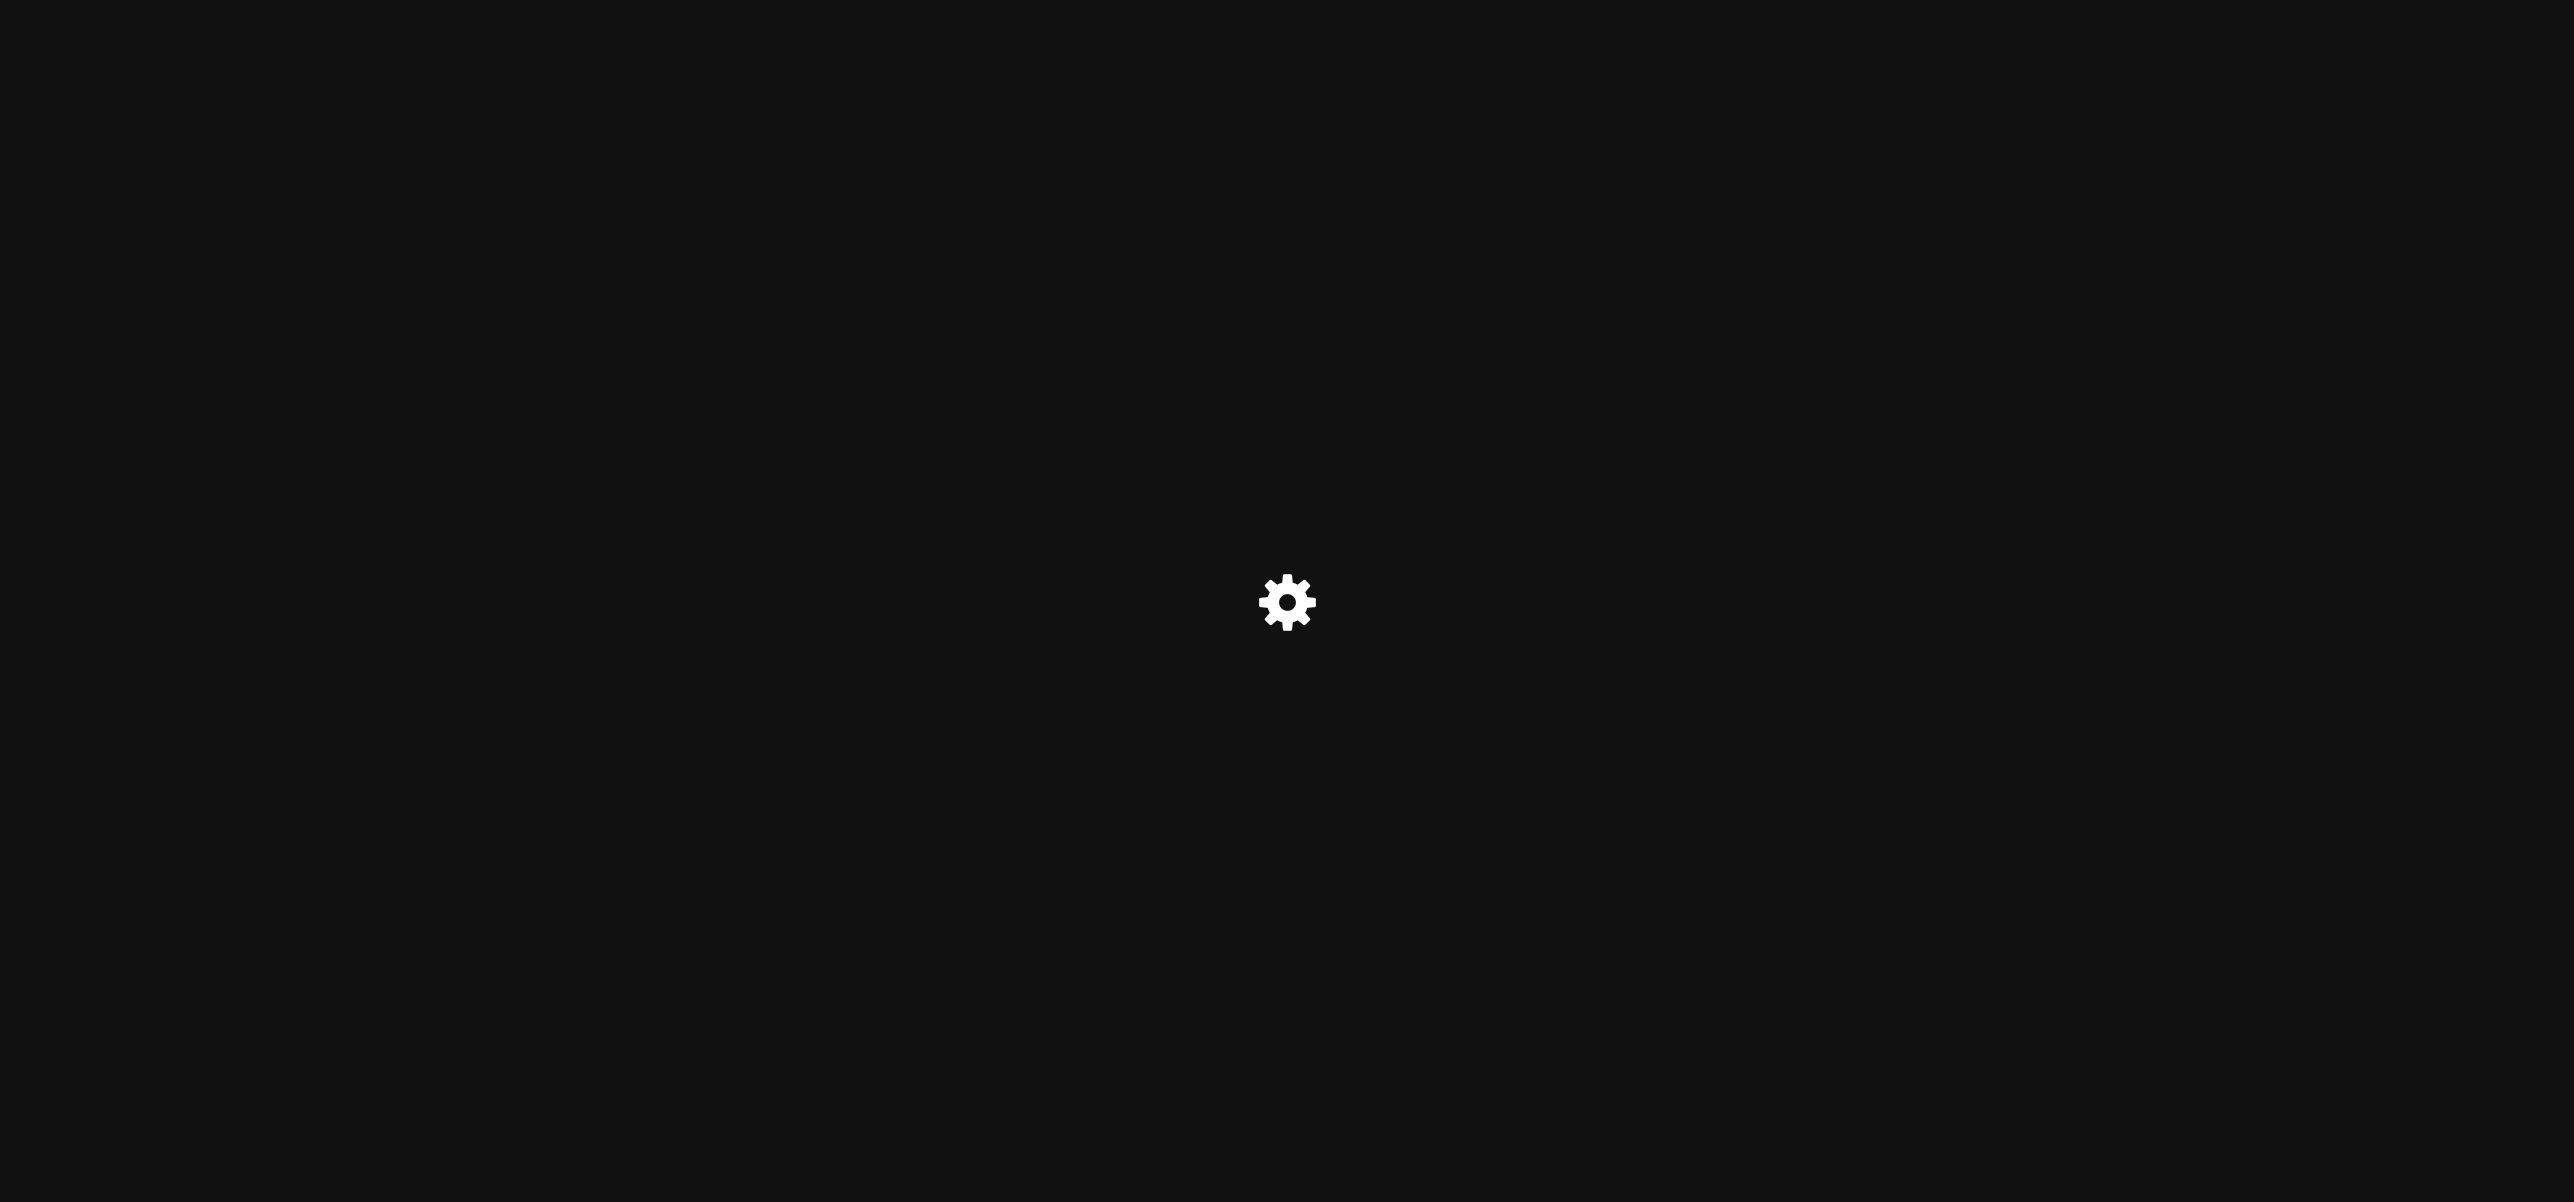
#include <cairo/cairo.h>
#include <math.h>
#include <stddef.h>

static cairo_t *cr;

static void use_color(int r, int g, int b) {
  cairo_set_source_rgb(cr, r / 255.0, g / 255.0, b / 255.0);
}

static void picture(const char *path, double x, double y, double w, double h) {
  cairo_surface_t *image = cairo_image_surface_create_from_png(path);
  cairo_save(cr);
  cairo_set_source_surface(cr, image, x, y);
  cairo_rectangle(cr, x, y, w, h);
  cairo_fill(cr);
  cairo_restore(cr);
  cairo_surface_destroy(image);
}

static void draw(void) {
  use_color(17, 17, 17);
  cairo_paint(cr);
  picture("img_01.png", 1259, 574, 57, 57);
}

int main(void) {
  cairo_surface_t *surface = cairo_image_surface_create(CAIRO_FORMAT_RGB24, 2574, 1202);
  cr = cairo_create(surface);
  cairo_font_options_t *options = cairo_font_options_create();
  cairo_font_options_set_hint_metrics(options, CAIRO_HINT_METRICS_OFF);
  cairo_font_options_set_hint_style(options, CAIRO_HINT_STYLE_NONE);
  cairo_set_font_options(cr, options);
  cairo_set_miter_limit(cr, 4);
  draw();
  cairo_surface_write_to_png(surface, "out.png");
  cairo_font_options_destroy(options);
  cairo_destroy(cr);
  cairo_surface_destroy(surface);
  return 0;
}
